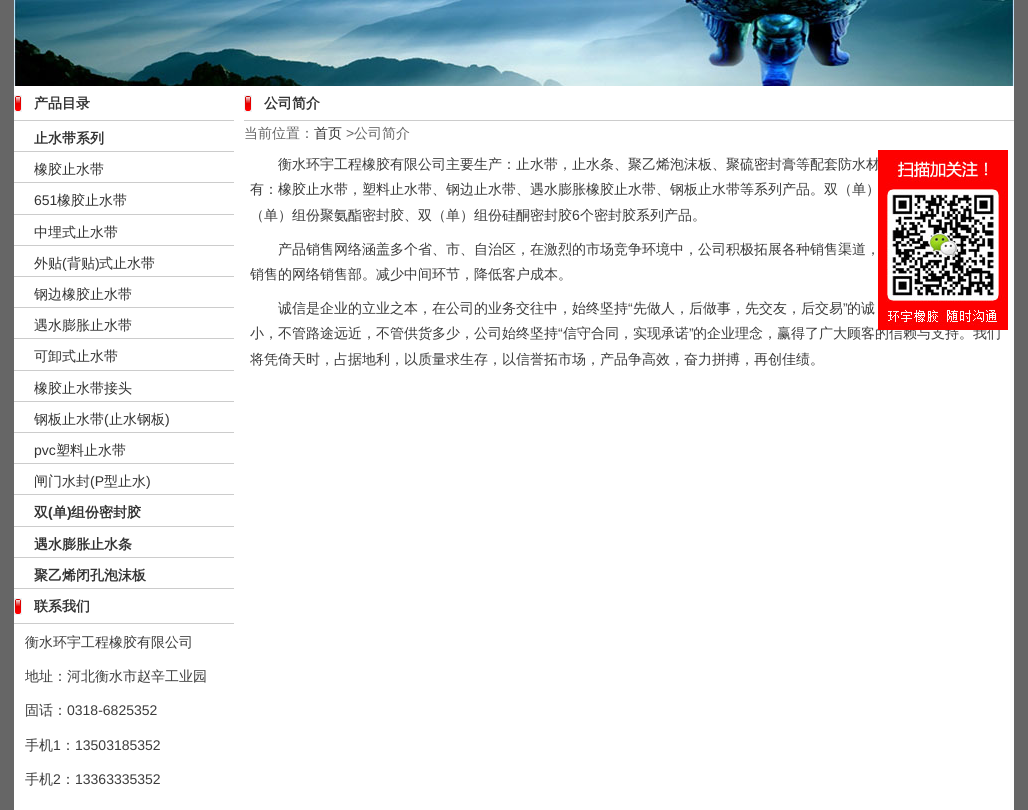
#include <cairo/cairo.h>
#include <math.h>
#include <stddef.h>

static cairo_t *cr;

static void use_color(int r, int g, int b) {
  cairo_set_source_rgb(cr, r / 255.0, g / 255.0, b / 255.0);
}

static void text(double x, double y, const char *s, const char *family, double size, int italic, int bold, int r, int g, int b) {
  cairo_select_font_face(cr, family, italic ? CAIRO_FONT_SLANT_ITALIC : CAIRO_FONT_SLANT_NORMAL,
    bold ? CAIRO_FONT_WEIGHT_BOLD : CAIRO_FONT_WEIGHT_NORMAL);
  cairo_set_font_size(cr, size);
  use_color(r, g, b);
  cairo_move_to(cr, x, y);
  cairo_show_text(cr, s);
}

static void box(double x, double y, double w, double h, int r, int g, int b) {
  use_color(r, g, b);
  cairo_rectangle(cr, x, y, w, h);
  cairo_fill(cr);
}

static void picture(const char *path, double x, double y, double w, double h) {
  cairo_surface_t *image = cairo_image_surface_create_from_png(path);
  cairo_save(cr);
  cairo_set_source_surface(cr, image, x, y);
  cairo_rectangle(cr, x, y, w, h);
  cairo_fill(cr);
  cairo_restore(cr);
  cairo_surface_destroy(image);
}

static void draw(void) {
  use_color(102, 102, 102);
  cairo_paint(cr);
  picture("img_01.png", 14, 0, 1000, 86);
  box(14, 86, 1000, 724, 255, 255, 255);
  picture("img_02.png", 14, 95, 8, 17);
  box(14, 120, 220, 1, 204, 204, 204);
  box(14, 151, 220, 1, 204, 204, 204);
  box(14, 182, 220, 1, 204, 204, 204);
  box(14, 214, 220, 1, 204, 204, 204);
  box(14, 245, 220, 1, 204, 204, 204);
  box(14, 276, 220, 1, 204, 204, 204);
  box(14, 307, 220, 1, 204, 204, 204);
  box(14, 338, 220, 1, 204, 204, 204);
  box(14, 370, 220, 1, 204, 204, 204);
  box(14, 401, 220, 1, 204, 204, 204);
  box(14, 432, 220, 1, 204, 204, 204);
  box(14, 463, 220, 1, 204, 204, 204);
  box(14, 494, 220, 1, 204, 204, 204);
  box(14, 526, 220, 1, 204, 204, 204);
  box(14, 557, 220, 1, 204, 204, 204);
  box(14, 588, 220, 1, 204, 204, 204);
  picture("img_02.png", 14, 598, 8, 17);
  box(14, 623, 220, 1, 204, 204, 204);
  picture("img_02.png", 244, 95, 8, 17);
  box(244, 120, 770, 1, 204, 204, 204);
  text(34, 108, "产品目录", "WenQuanYi Zen Hei", 14, 0, 1, 51, 51, 51);
  text(34, 143, "止水带系列", "WenQuanYi Zen Hei", 14, 0, 1, 51, 51, 51);
  text(34, 174, "橡胶止水带", "WenQuanYi Zen Hei Medium", 14, 0, 0, 51, 51, 51);
  text(34, 205, "651", "Liberation Sans", 14, 0, 0, 51, 51, 51);
  text(57, 205, "橡胶止水带", "WenQuanYi Zen Hei Medium", 14, 0, 0, 51, 51, 51);
  text(34, 237, "中埋式止水带", "WenQuanYi Zen Hei Medium", 14, 0, 0, 51, 51, 51);
  text(34, 268, "外贴", "WenQuanYi Zen Hei Medium", 14, 0, 0, 51, 51, 51);
  text(62, 268, "(", "Liberation Sans", 14, 0, 0, 51, 51, 51);
  text(67, 268, "背贴", "WenQuanYi Zen Hei Medium", 14, 0, 0, 51, 51, 51);
  text(95, 268, ")", "Liberation Sans", 14, 0, 0, 51, 51, 51);
  text(99, 268, "式止水带", "WenQuanYi Zen Hei Medium", 14, 0, 0, 51, 51, 51);
  text(34, 299, "钢边橡胶止水带", "WenQuanYi Zen Hei Medium", 14, 0, 0, 51, 51, 51);
  text(34, 330, "遇水膨胀止水带", "WenQuanYi Zen Hei Medium", 14, 0, 0, 51, 51, 51);
  text(34, 361, "可卸式止水带", "WenQuanYi Zen Hei Medium", 14, 0, 0, 51, 51, 51);
  text(34, 393, "橡胶止水带接头", "WenQuanYi Zen Hei Medium", 14, 0, 0, 51, 51, 51);
  text(34, 424, "钢板止水带", "WenQuanYi Zen Hei Medium", 14, 0, 0, 51, 51, 51);
  text(104, 424, "(", "Liberation Sans", 14, 0, 0, 51, 51, 51);
  text(109, 424, "止水钢板", "WenQuanYi Zen Hei Medium", 14, 0, 0, 51, 51, 51);
  text(165, 424, ")", "Liberation Sans", 14, 0, 0, 51, 51, 51);
  text(34, 455, "pvc", "Liberation Sans", 14, 0, 0, 51, 51, 51);
  text(56, 455, "塑料止水带", "WenQuanYi Zen Hei Medium", 14, 0, 0, 51, 51, 51);
  text(34, 486, "闸门水封", "WenQuanYi Zen Hei Medium", 14, 0, 0, 51, 51, 51);
  text(90, 486, "(P", "Liberation Sans", 14, 0, 0, 51, 51, 51);
  text(104, 486, "型止水", "WenQuanYi Zen Hei Medium", 14, 0, 0, 51, 51, 51);
  text(146, 486, ")", "Liberation Sans", 14, 0, 0, 51, 51, 51);
  text(34, 517, "双", "WenQuanYi Zen Hei", 14, 0, 1, 51, 51, 51);
  text(48, 517, "(", "Liberation Sans", 14, 0, 1, 51, 51, 51);
  text(53, 517, "单", "WenQuanYi Zen Hei", 14, 0, 1, 51, 51, 51);
  text(67, 517, ")", "Liberation Sans", 14, 0, 1, 51, 51, 51);
  text(71, 517, "组份密封胶", "WenQuanYi Zen Hei", 14, 0, 1, 51, 51, 51);
  text(34, 549, "遇水膨胀止水条", "WenQuanYi Zen Hei", 14, 0, 1, 51, 51, 51);
  text(34, 580, "聚乙烯闭孔泡沫板", "WenQuanYi Zen Hei", 14, 0, 1, 51, 51, 51);
  text(34, 611, "联系我们", "WenQuanYi Zen Hei", 14, 0, 1, 51, 51, 51);
  text(25, 647, "衡水环宇工程橡胶有限公司", "WenQuanYi Zen Hei Medium", 14, 0, 0, 60, 60, 60);
  text(25, 681, "地址：河北衡水市赵辛工业园", "WenQuanYi Zen Hei Medium", 14, 0, 0, 60, 60, 60);
  text(25, 715, "固话：", "WenQuanYi Zen Hei Medium", 14, 0, 0, 60, 60, 60);
  text(67, 715, "0318-6825352", "Liberation Sans", 14, 0, 0, 60, 60, 60);
  text(25, 750, "手机", "WenQuanYi Zen Hei Medium", 14, 0, 0, 60, 60, 60);
  text(53, 750, "1", "Liberation Sans", 14, 0, 0, 60, 60, 60);
  text(61, 750, "：", "WenQuanYi Zen Hei Medium", 14, 0, 0, 60, 60, 60);
  text(75, 750, "13503185352", "Liberation Sans", 14, 0, 0, 60, 60, 60);
  text(25, 784, "手机", "WenQuanYi Zen Hei Medium", 14, 0, 0, 60, 60, 60);
  text(53, 784, "2", "Liberation Sans", 14, 0, 0, 60, 60, 60);
  text(61, 784, "：", "WenQuanYi Zen Hei Medium", 14, 0, 0, 60, 60, 60);
  text(75, 784, "13363335352", "Liberation Sans", 14, 0, 0, 60, 60, 60);
  text(264, 108, "公司简介", "WenQuanYi Zen Hei", 14, 0, 1, 51, 51, 51);
  text(244, 138, "当前位置：", "WenQuanYi Zen Hei Medium", 14, 0, 0, 102, 102, 102);
  text(314, 138, "首页", "WenQuanYi Zen Hei Medium", 14, 0, 0, 51, 51, 51);
  text(346, 138, ">", "Liberation Sans", 14, 0, 0, 102, 102, 102);
  text(354, 138, "公司简介", "WenQuanYi Zen Hei Medium", 14, 0, 0, 102, 102, 102);
  text(278, 169, "衡水环宇工程橡胶有限公司主要生产：止水带，止水条、聚乙烯泡沫板、聚硫密封膏等配套防水材", "WenQuanYi Zen Hei Medium", 14, 0, 0, 60, 60, 60);
  text(250, 194, "有：橡胶止水带，塑料止水带、钢边止水带、遇水膨胀橡胶止水带、钢板止水带等系列产品。双（单）", "WenQuanYi Zen Hei Medium", 14, 0, 0, 60, 60, 60);
  text(250, 220, "（单）组份聚氨酯密封胶、双（单）组份硅酮密封胶", "WenQuanYi Zen Hei Medium", 14, 0, 0, 60, 60, 60);
  text(572, 220, "6", "Liberation Sans", 14, 0, 0, 60, 60, 60);
  text(580, 220, "个密封胶系列产品。", "WenQuanYi Zen Hei Medium", 14, 0, 0, 60, 60, 60);
  text(278, 254, "产品销售网络涵盖多个省、市、自治区，在激烈的市场竞争环境中，公司积极拓展各种销售渠道，", "WenQuanYi Zen Hei Medium", 14, 0, 0, 60, 60, 60);
  text(250, 279, "销售的网络销售部。减少中间环节，降低客户成本。", "WenQuanYi Zen Hei Medium", 14, 0, 0, 60, 60, 60);
  text(278, 313, "诚信是企业的立业之本，在公司的业务交往中，始终坚持", "WenQuanYi Zen Hei Medium", 14, 0, 0, 60, 60, 60);
  text(628, 313, "“", "Liberation Sans", 14, 0, 0, 60, 60, 60);
  text(633, 313, "先做人，后做事，先交友，后交易", "WenQuanYi Zen Hei Medium", 14, 0, 0, 60, 60, 60);
  text(843, 313, "”", "Liberation Sans", 14, 0, 0, 60, 60, 60);
  text(847, 313, "的诚", "WenQuanYi Zen Hei Medium", 14, 0, 0, 60, 60, 60);
  text(250, 338, "小，不管路途远近，不管供货多少，公司始终坚持", "WenQuanYi Zen Hei Medium", 14, 0, 0, 60, 60, 60);
  text(558, 338, "“", "Liberation Sans", 14, 0, 0, 60, 60, 60);
  text(563, 338, "信守合同，实现承诺", "WenQuanYi Zen Hei Medium", 14, 0, 0, 60, 60, 60);
  text(689, 338, "”", "Liberation Sans", 14, 0, 0, 60, 60, 60);
  text(693, 338, "的企业理念，赢得了广大顾客的信赖与支持。我们", "WenQuanYi Zen Hei Medium", 14, 0, 0, 60, 60, 60);
  text(250, 364, "将凭倚天时，占据地利，以质量求生存，以信誉拓市场，产品争高效，奋力拼搏，再创佳绩。", "WenQuanYi Zen Hei Medium", 14, 0, 0, 60, 60, 60);
  picture("img_03.png", 878, 150, 130, 180);
}

int main(void) {
  cairo_surface_t *surface = cairo_image_surface_create(CAIRO_FORMAT_RGB24, 1028, 810);
  cr = cairo_create(surface);
  cairo_font_options_t *options = cairo_font_options_create();
  cairo_font_options_set_hint_metrics(options, CAIRO_HINT_METRICS_OFF);
  cairo_font_options_set_hint_style(options, CAIRO_HINT_STYLE_NONE);
  cairo_set_font_options(cr, options);
  cairo_set_miter_limit(cr, 4);
  draw();
  cairo_surface_write_to_png(surface, "out.png");
  cairo_font_options_destroy(options);
  cairo_destroy(cr);
  cairo_surface_destroy(surface);
  return 0;
}
